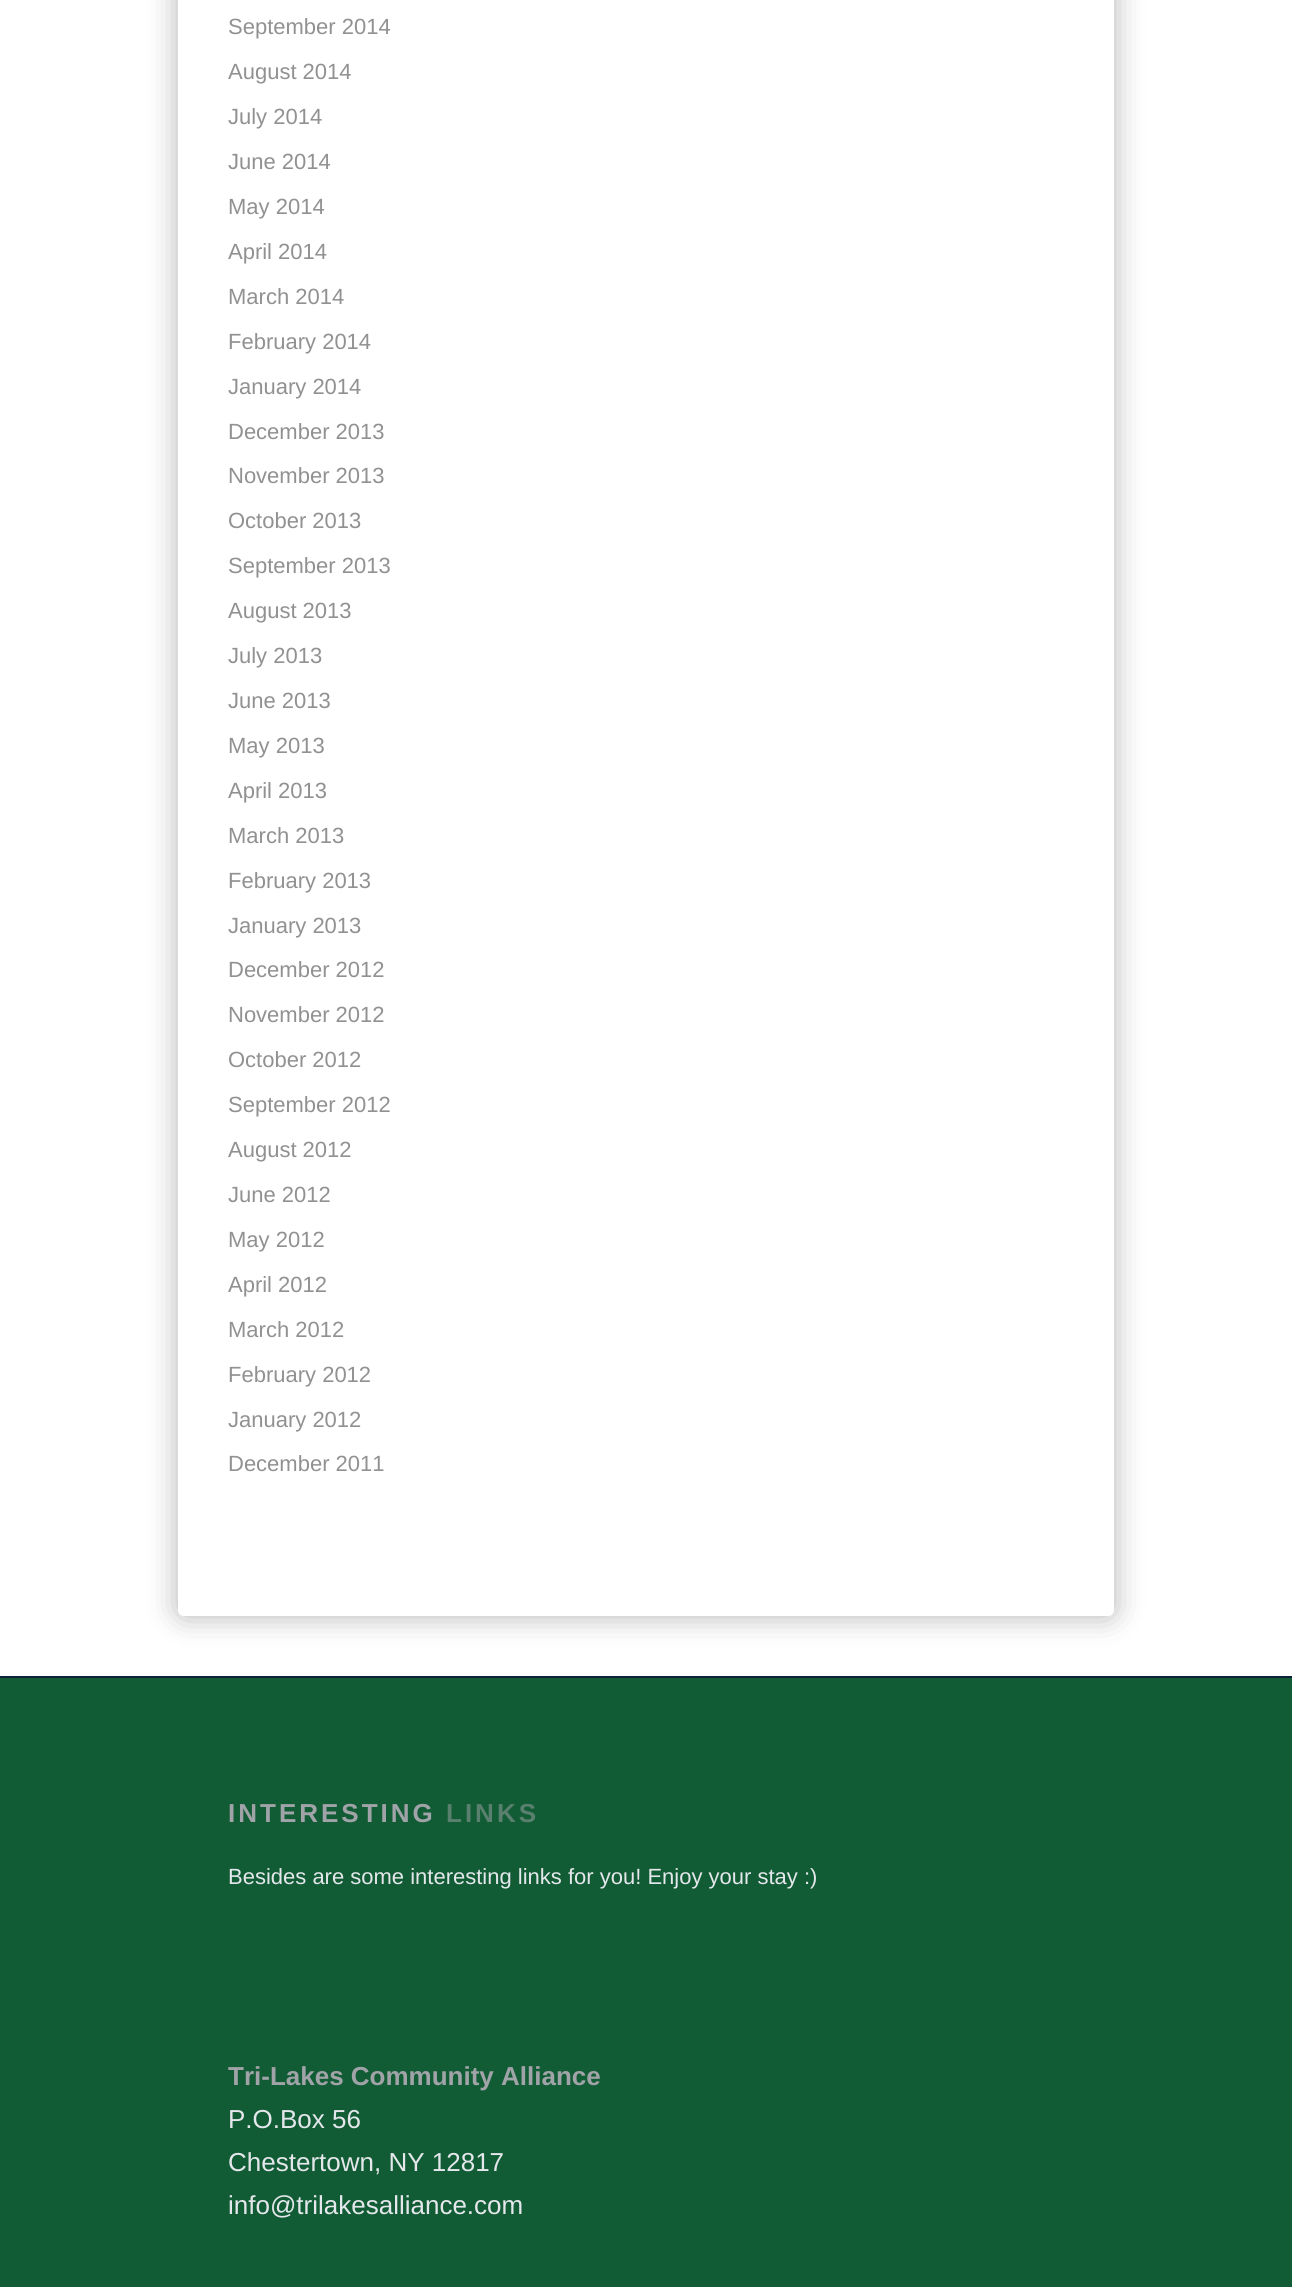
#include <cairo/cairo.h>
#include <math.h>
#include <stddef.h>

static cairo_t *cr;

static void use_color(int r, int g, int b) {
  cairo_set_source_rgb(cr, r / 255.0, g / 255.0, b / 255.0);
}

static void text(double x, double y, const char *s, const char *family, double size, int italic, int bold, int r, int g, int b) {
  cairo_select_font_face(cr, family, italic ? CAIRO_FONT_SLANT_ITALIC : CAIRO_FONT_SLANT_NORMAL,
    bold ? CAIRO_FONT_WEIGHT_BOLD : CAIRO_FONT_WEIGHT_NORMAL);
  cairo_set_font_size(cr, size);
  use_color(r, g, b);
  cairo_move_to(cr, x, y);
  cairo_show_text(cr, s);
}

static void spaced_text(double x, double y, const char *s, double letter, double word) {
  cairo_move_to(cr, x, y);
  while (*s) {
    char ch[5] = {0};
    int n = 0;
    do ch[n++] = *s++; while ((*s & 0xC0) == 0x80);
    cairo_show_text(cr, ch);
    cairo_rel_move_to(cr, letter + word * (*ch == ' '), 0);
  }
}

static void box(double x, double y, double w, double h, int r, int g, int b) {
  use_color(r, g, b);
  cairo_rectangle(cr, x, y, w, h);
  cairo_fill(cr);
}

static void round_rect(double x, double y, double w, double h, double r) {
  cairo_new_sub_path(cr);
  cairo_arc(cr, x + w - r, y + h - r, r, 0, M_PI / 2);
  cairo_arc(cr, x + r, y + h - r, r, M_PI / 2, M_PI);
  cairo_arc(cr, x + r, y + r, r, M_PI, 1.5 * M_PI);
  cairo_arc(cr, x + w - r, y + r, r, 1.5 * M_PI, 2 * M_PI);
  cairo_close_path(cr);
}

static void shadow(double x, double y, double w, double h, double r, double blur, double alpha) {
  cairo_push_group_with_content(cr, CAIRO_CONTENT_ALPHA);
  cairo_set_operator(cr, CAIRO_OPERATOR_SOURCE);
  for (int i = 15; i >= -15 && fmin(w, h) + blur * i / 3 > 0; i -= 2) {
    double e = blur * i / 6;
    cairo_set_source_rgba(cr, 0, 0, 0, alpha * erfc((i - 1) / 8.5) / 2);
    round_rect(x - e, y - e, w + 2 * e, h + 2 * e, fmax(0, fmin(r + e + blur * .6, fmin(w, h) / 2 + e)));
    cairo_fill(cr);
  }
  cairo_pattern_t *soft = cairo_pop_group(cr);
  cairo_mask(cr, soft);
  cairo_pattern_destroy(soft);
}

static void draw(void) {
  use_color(255, 255, 255);
  cairo_paint(cr);
  use_color(0, 0, 0);
  shadow(178, -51, 936, 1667, 6, 15, 0.3);
  use_color(255, 255, 255);
  round_rect(178, -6, 936, 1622, 6);
  cairo_fill(cr);
  box(0, 1678, 1292, 609, 18, 92, 53);
  box(0, 1676, 1292, 2, 10, 33, 56);
  text(228, 34, "September 2014", "Liberation Sans", 22, 0, 0, 145, 145, 145);
  text(228, 79, "August 2014", "Liberation Sans", 22, 0, 0, 145, 145, 145);
  text(228, 124, "July 2014", "Liberation Sans", 22, 0, 0, 145, 145, 145);
  text(228, 169, "June 2014", "Liberation Sans", 22, 0, 0, 145, 145, 145);
  text(228, 214, "May 2014", "Liberation Sans", 22, 0, 0, 145, 145, 145);
  text(228, 259, "April 2014", "Liberation Sans", 22, 0, 0, 145, 145, 145);
  text(228, 304, "March 2014", "Liberation Sans", 22, 0, 0, 145, 145, 145);
  text(228, 349, "February 2014", "Liberation Sans", 22, 0, 0, 145, 145, 145);
  text(228, 394, "January 2014", "Liberation Sans", 22, 0, 0, 145, 145, 145);
  text(228, 439, "December 2013", "Liberation Sans", 22, 0, 0, 145, 145, 145);
  text(228, 483, "November 2013", "Liberation Sans", 22, 0, 0, 145, 145, 145);
  text(228, 528, "October 2013", "Liberation Sans", 22, 0, 0, 145, 145, 145);
  text(228, 573, "September 2013", "Liberation Sans", 22, 0, 0, 145, 145, 145);
  text(228, 618, "August 2013", "Liberation Sans", 22, 0, 0, 145, 145, 145);
  text(228, 663, "July 2013", "Liberation Sans", 22, 0, 0, 145, 145, 145);
  text(228, 708, "June 2013", "Liberation Sans", 22, 0, 0, 145, 145, 145);
  text(228, 753, "May 2013", "Liberation Sans", 22, 0, 0, 145, 145, 145);
  text(228, 798, "April 2013", "Liberation Sans", 22, 0, 0, 145, 145, 145);
  text(228, 843, "March 2013", "Liberation Sans", 22, 0, 0, 145, 145, 145);
  text(228, 888, "February 2013", "Liberation Sans", 22, 0, 0, 145, 145, 145);
  text(228, 933, "January 2013", "Liberation Sans", 22, 0, 0, 145, 145, 145);
  text(228, 977, "December 2012", "Liberation Sans", 22, 0, 0, 145, 145, 145);
  text(228, 1022, "November 2012", "Liberation Sans", 22, 0, 0, 145, 145, 145);
  text(228, 1067, "October 2012", "Liberation Sans", 22, 0, 0, 145, 145, 145);
  text(228, 1112, "September 2012", "Liberation Sans", 22, 0, 0, 145, 145, 145);
  text(228, 1157, "August 2012", "Liberation Sans", 22, 0, 0, 145, 145, 145);
  text(228, 1202, "June 2012", "Liberation Sans", 22, 0, 0, 145, 145, 145);
  text(228, 1247, "May 2012", "Liberation Sans", 22, 0, 0, 145, 145, 145);
  text(228, 1292, "April 2012", "Liberation Sans", 22, 0, 0, 145, 145, 145);
  text(228, 1337, "March 2012", "Liberation Sans", 22, 0, 0, 145, 145, 145);
  text(228, 1382, "February 2012", "Liberation Sans", 22, 0, 0, 145, 145, 145);
  text(228, 1427, "January 2012", "Liberation Sans", 22, 0, 0, 145, 145, 145);
  text(228, 1471, "December 2011", "Liberation Sans", 22, 0, 0, 145, 145, 145);
  cairo_select_font_face(cr, "Liberation Sans", CAIRO_FONT_SLANT_NORMAL, CAIRO_FONT_WEIGHT_BOLD);
  cairo_set_font_size(cr, 26);
  use_color(160, 163, 167);
  spaced_text(228, 1822, "INTERESTING", 3, 0);
  use_color(89, 128, 110);
  spaced_text(446, 1822, "LINKS", 3, 0);
  text(228, 1884, "Besides are some interesting links for you! Enjoy your stay :)", "Liberation Sans", 22, 0, 0, 228, 231, 235);
  text(228, 2085, "Tri-Lakes Community Alliance", "Liberation Sans", 26, 0, 1, 160, 163, 167);
  text(228, 2128, "P.O.Box 56", "Liberation Sans", 26, 0, 0, 228, 231, 235);
  text(228, 2171, "Chestertown, NY 12817", "Liberation Sans", 26, 0, 0, 228, 231, 235);
  text(228, 2214, "info@trilakesalliance.com", "Liberation Sans", 26, 0, 0, 228, 231, 235);
}

int main(void) {
  cairo_surface_t *surface = cairo_image_surface_create(CAIRO_FORMAT_RGB24, 1292, 2287);
  cr = cairo_create(surface);
  cairo_font_options_t *options = cairo_font_options_create();
  cairo_font_options_set_hint_metrics(options, CAIRO_HINT_METRICS_OFF);
  cairo_font_options_set_hint_style(options, CAIRO_HINT_STYLE_NONE);
  cairo_set_font_options(cr, options);
  cairo_set_miter_limit(cr, 4);
  draw();
  cairo_surface_write_to_png(surface, "out.png");
  cairo_font_options_destroy(options);
  cairo_destroy(cr);
  cairo_surface_destroy(surface);
  return 0;
}
